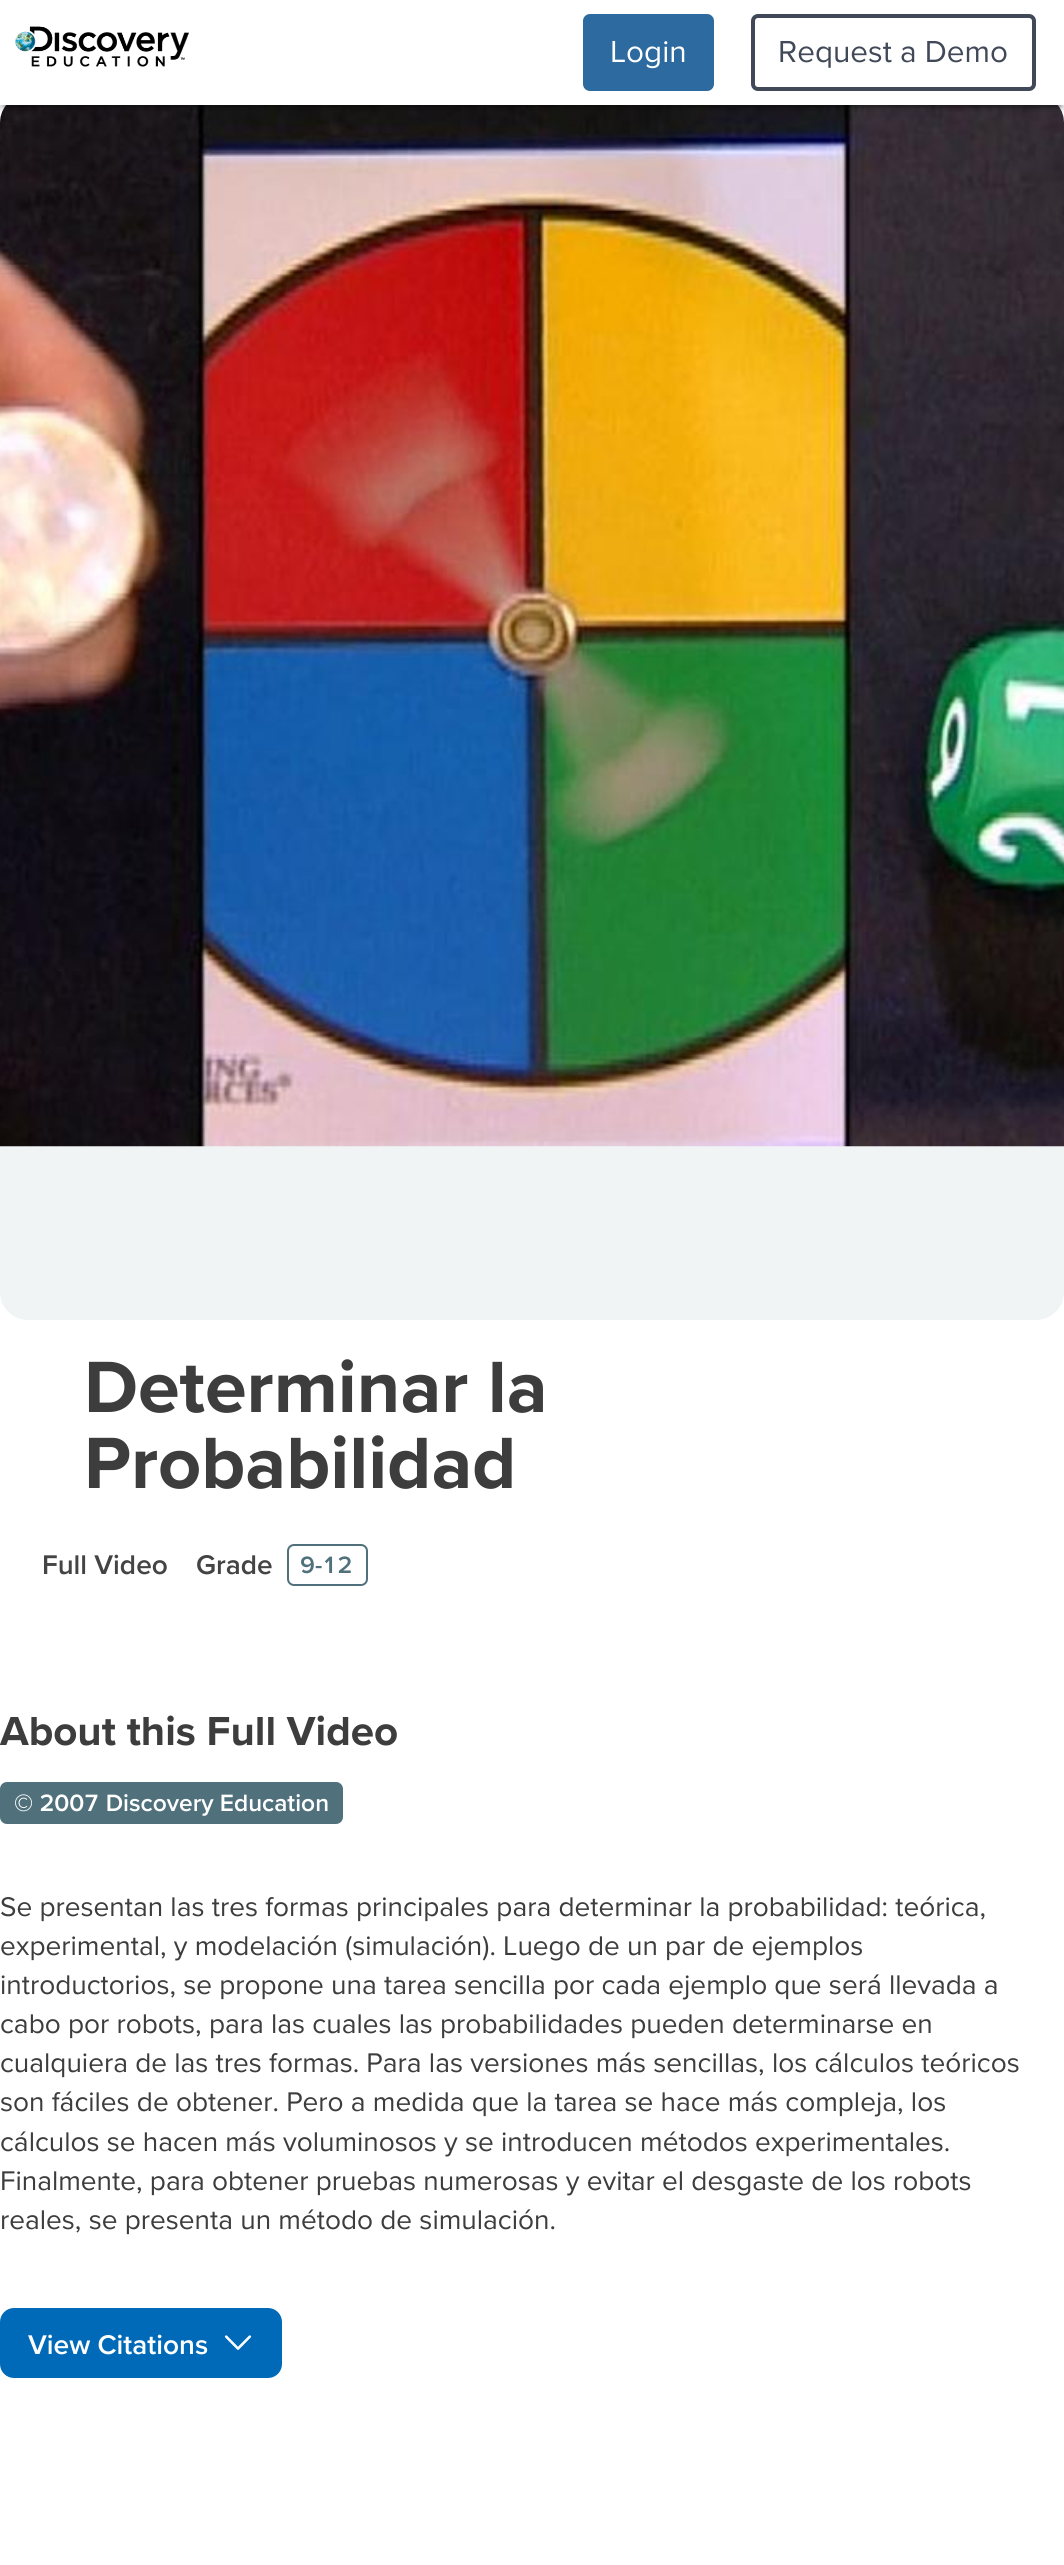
#include <cairo/cairo.h>
#include <math.h>
#include <stddef.h>

static cairo_t *cr;

static void use_color(int r, int g, int b) {
  cairo_set_source_rgb(cr, r / 255.0, g / 255.0, b / 255.0);
}

static void text(double x, double y, const char *s, const char *family, double size, int italic, int bold, int r, int g, int b) {
  cairo_select_font_face(cr, family, italic ? CAIRO_FONT_SLANT_ITALIC : CAIRO_FONT_SLANT_NORMAL,
    bold ? CAIRO_FONT_WEIGHT_BOLD : CAIRO_FONT_WEIGHT_NORMAL);
  cairo_set_font_size(cr, size);
  use_color(r, g, b);
  cairo_move_to(cr, x, y);
  cairo_show_text(cr, s);
}

static void box(double x, double y, double w, double h, int r, int g, int b) {
  use_color(r, g, b);
  cairo_rectangle(cr, x, y, w, h);
  cairo_fill(cr);
}

static void round_rect(double x, double y, double w, double h, double r) {
  cairo_new_sub_path(cr);
  cairo_arc(cr, x + w - r, y + h - r, r, 0, M_PI / 2);
  cairo_arc(cr, x + r, y + h - r, r, M_PI / 2, M_PI);
  cairo_arc(cr, x + r, y + r, r, M_PI, 1.5 * M_PI);
  cairo_arc(cr, x + w - r, y + r, r, 1.5 * M_PI, 2 * M_PI);
  cairo_close_path(cr);
}

static void shadow(double x, double y, double w, double h, double r, double blur, double alpha) {
  cairo_push_group_with_content(cr, CAIRO_CONTENT_ALPHA);
  cairo_set_operator(cr, CAIRO_OPERATOR_SOURCE);
  for (int i = 15; i >= -15 && fmin(w, h) + blur * i / 3 > 0; i -= 2) {
    double e = blur * i / 6;
    cairo_set_source_rgba(cr, 0, 0, 0, alpha * erfc((i - 1) / 8.5) / 2);
    round_rect(x - e, y - e, w + 2 * e, h + 2 * e, fmax(0, fmin(r + e + blur * .6, fmin(w, h) / 2 + e)));
    cairo_fill(cr);
  }
  cairo_pattern_t *soft = cairo_pop_group(cr);
  cairo_mask(cr, soft);
  cairo_pattern_destroy(soft);
}

static void picture(const char *path, double x, double y, double w, double h) {
  cairo_surface_t *image = cairo_image_surface_create_from_png(path);
  cairo_save(cr);
  cairo_set_source_surface(cr, image, x, y);
  cairo_rectangle(cr, x, y, w, h);
  cairo_fill(cr);
  cairo_restore(cr);
  cairo_surface_destroy(image);
}

static void draw(void) {
  use_color(255, 255, 255);
  cairo_paint(cr);
  use_color(240, 244, 245);
  round_rect(0, 95, 1064, 1225, 28);
  cairo_fill(cr);
  picture("img_02.png", 0, 105, 1064, 1042);
  use_color(0, 0, 0);
  shadow(4, 9, 1057, 98, 0, 1, 0.2);
  shadow(0, 2, 1064, 105, 0, 4.5, 0.12);
  shadow(0, 4, 1064, 105, 0, 2, 0.14);
  box(0, 0, 1064, 105, 255, 255, 255);
  picture("img_01.png", 15, 26, 174, 41);
  use_color(45, 106, 159);
  round_rect(583, 14, 131, 77, 7);
  cairo_fill(cr);
  round_rect(753, 16, 281, 73, 5);
  use_color(65, 72, 88);
  cairo_set_line_width(cr, 4);
  cairo_stroke(cr);
  round_rect(288, 1545, 79, 40, 6);
  use_color(80, 113, 124);
  cairo_set_line_width(cr, 2);
  cairo_stroke(cr);
  round_rect(0, 1782, 343, 42, 7);
  cairo_fill(cr);
  use_color(0, 105, 184);
  round_rect(0, 2308, 282, 70, 14);
  cairo_fill(cr);
  picture("img_03.png", 224, 2335, 28, 15);
  text(610, 62, "Login", "Proxima Nova", 31.5, 0, 0, 255, 255, 255);
  text(778, 62, "Request a Demo", "Proxima Nova", 31.5, 0, 0, 65, 72, 88);
  text(84, 1412, "Determinar la", "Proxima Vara", 75.25, 0, 1, 61, 61, 61);
  text(84, 1488, "Probabilidad", "Proxima Vara", 75.25, 0, 1, 61, 61, 61);
  text(42, 1574, "Full Video", "Proxima Vara SemiBold", 28, 0, 0, 68, 68, 68);
  text(196, 1574, "Grade", "Proxima Vara SemiBold", 28, 0, 0, 68, 68, 68);
  text(300, 1573, "9-12", "Proxima Vara SemiBold", 24.5, 0, 0, 80, 113, 124);
  text(0, 1745, "About this Full Video", "Proxima Vara", 42, 0, 1, 61, 61, 61);
  text(14, 1811, "© 2007 Discovery Education", "Proxima Vara SemiBold", 24.5, 0, 0, 255, 255, 255);
  text(0, 1916, "Se presentan las tres formas principales para determinar la probabilidad: teórica,", "Proxima Vara", 28, 0, 0, 61, 61, 61);
  text(0, 1955, "experimental, y modelación (simulación). Luego de un par de ejemplos", "Proxima Vara", 28, 0, 0, 61, 61, 61);
  text(0, 1994, "introductorios, se propone una tarea sencilla por cada ejemplo que será llevada a", "Proxima Vara", 28, 0, 0, 61, 61, 61);
  text(0, 2033, "cabo por robots, para las cuales las probabilidades pueden determinarse en", "Proxima Vara", 28, 0, 0, 61, 61, 61);
  text(0, 2072, "cualquiera de las tres formas. Para las versiones más sencillas, los cálculos teóricos", "Proxima Vara", 28, 0, 0, 61, 61, 61);
  text(0, 2111, "son fáciles de obtener. Pero a medida que la tarea se hace más compleja, los", "Proxima Vara", 28, 0, 0, 61, 61, 61);
  text(0, 2151, "cálculos se hacen más voluminosos y se introducen métodos experimentales.", "Proxima Vara", 28, 0, 0, 61, 61, 61);
  text(0, 2190, "Finalmente, para obtener pruebas numerosas y evitar el desgaste de los robots", "Proxima Vara", 28, 0, 0, 61, 61, 61);
  text(0, 2229, "reales, se presenta un método de simulación.", "Proxima Vara", 28, 0, 0, 61, 61, 61);
  text(28, 2354, "View Citations", "Proxima Vara SemiBold", 28, 0, 0, 255, 255, 255);
}

int main(void) {
  cairo_surface_t *surface = cairo_image_surface_create(CAIRO_FORMAT_RGB24, 1064, 2565);
  cr = cairo_create(surface);
  cairo_font_options_t *options = cairo_font_options_create();
  cairo_font_options_set_hint_metrics(options, CAIRO_HINT_METRICS_OFF);
  cairo_font_options_set_hint_style(options, CAIRO_HINT_STYLE_NONE);
  cairo_set_font_options(cr, options);
  cairo_set_miter_limit(cr, 4);
  draw();
  cairo_surface_write_to_png(surface, "out.png");
  cairo_font_options_destroy(options);
  cairo_destroy(cr);
  cairo_surface_destroy(surface);
  return 0;
}
